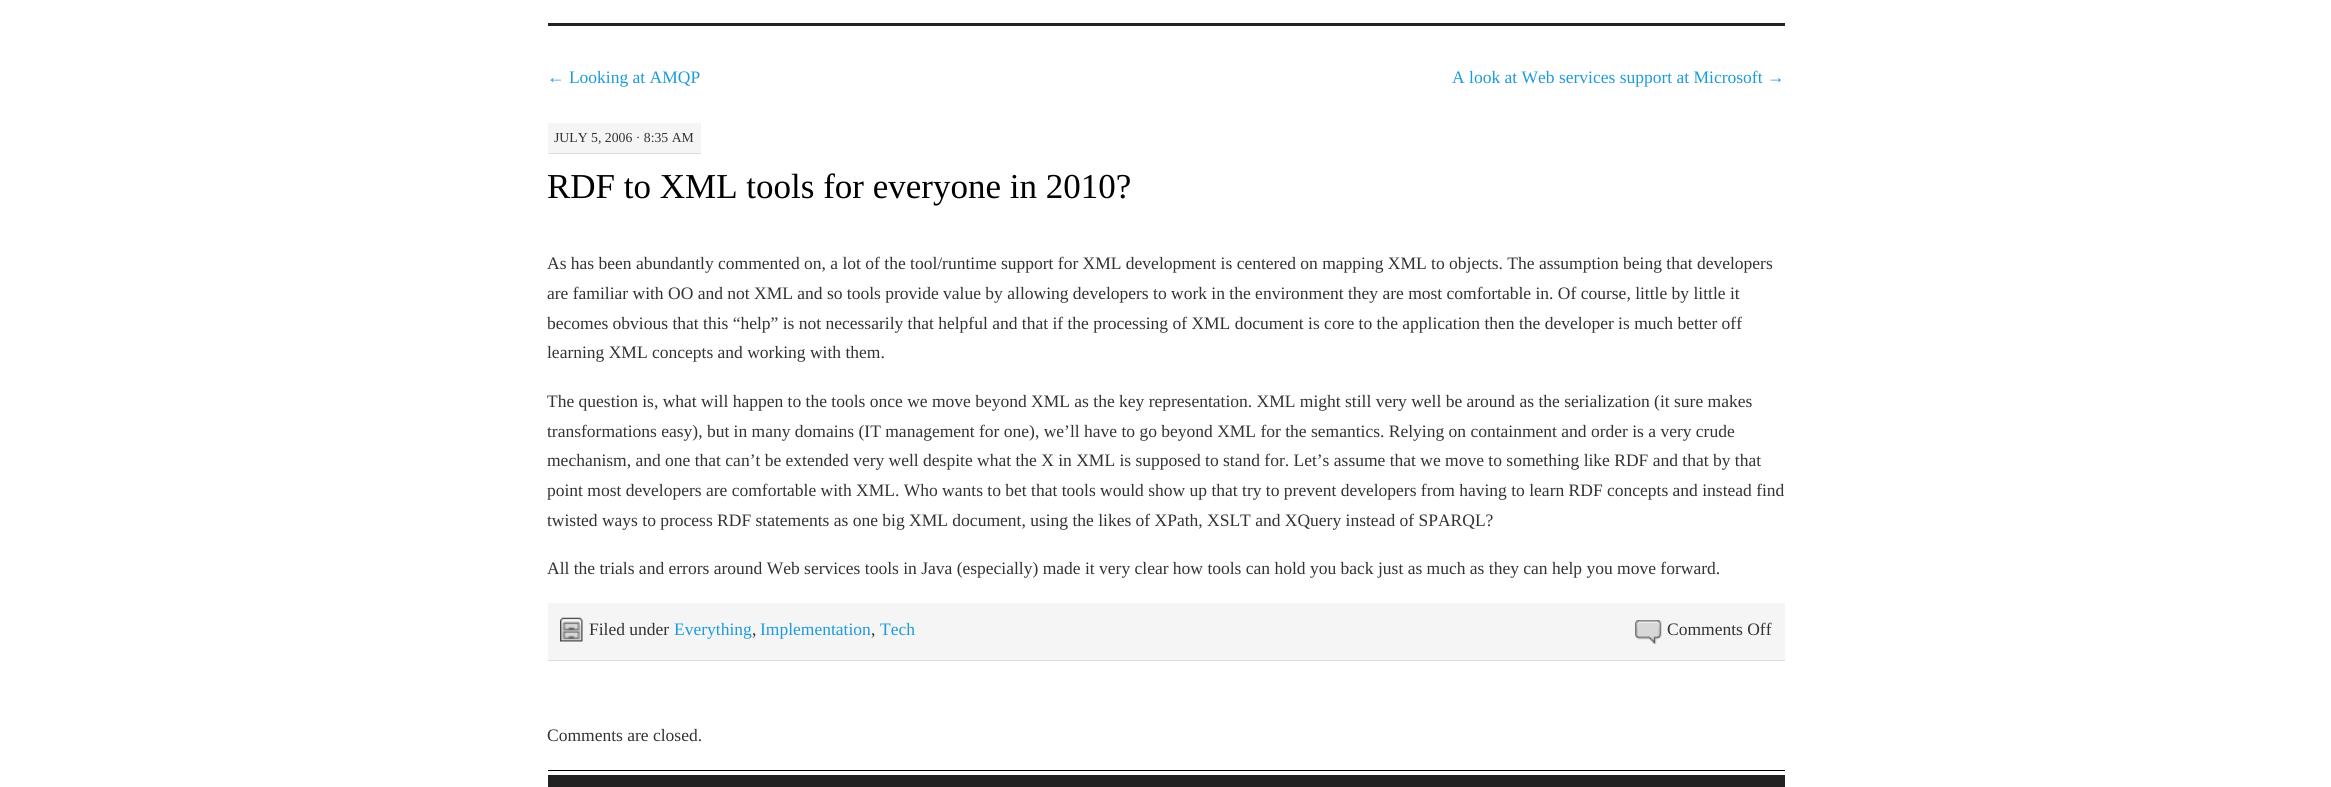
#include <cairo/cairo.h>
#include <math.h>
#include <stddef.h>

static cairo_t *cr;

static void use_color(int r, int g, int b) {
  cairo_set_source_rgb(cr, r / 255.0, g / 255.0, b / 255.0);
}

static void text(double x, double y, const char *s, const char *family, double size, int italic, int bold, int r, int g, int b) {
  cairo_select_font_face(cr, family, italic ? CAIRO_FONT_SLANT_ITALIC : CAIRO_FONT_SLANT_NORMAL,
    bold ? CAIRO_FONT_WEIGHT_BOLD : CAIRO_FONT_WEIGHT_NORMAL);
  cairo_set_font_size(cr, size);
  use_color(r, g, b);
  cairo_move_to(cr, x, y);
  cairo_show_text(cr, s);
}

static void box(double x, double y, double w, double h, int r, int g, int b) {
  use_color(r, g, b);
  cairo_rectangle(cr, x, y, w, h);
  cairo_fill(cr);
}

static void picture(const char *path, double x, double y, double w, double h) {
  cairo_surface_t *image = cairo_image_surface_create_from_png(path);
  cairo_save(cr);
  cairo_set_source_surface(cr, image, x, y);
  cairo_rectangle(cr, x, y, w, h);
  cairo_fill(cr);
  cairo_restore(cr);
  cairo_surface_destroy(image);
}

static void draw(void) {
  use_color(255, 255, 255);
  cairo_paint(cr);
  box(548, 23, 1237, 3, 34, 34, 34);
  box(548, 123, 153, 30, 245, 245, 245);
  box(548, 153, 153, 1, 221, 221, 221);
  box(548, 603, 1237, 57, 245, 245, 245);
  box(548, 660, 1237, 1, 221, 221, 221);
  picture("img_01.png", 560, 617, 23, 25);
  picture("img_02.png", 1635, 620, 27, 24);
  box(548, 770, 1237, 1, 0, 0, 0);
  box(548, 775, 1237, 12, 34, 34, 34);
  text(547, 83, "← Looking at AMQP", "Liberation Serif", 17.5, 0, 0, 28, 155, 220);
  text(1452, 83, "A look at Web services support at Microsoft →", "Liberation Serif", 17.5, 0, 0, 28, 155, 220);
  text(554, 142, "JULY 5, 2006 · 8:35 AM", "Liberation Serif", 13.75, 0, 0, 51, 51, 51);
  text(547, 198, "RDF to XML tools for everyone in 2010?", "Liberation Serif", 35, 0, 0, 0, 0, 0);
  text(547, 269, "As has been abundantly commented on, a lot of the tool/runtime support for XML development is centered on mapping XML to objects. The assumption being that developers", "Liberation Serif", 17.5, 0, 0, 51, 51, 51);
  text(547, 299, "are familiar with OO and not XML and so tools provide value by allowing developers to work in the environment they are most comfortable in. Of course, little by little it", "Liberation Serif", 17.5, 0, 0, 51, 51, 51);
  text(547, 329, "becomes obvious that this “help” is not necessarily that helpful and that if the processing of XML document is core to the application then the developer is much better off", "Liberation Serif", 17.5, 0, 0, 51, 51, 51);
  text(547, 358, "learning XML concepts and working with them.", "Liberation Serif", 17.5, 0, 0, 51, 51, 51);
  text(547, 407, "The question is, what will happen to the tools once we move beyond XML as the key representation. XML might still very well be around as the serialization (it sure makes", "Liberation Serif", 17.5, 0, 0, 51, 51, 51);
  text(547, 437, "transformations easy), but in many domains (IT management for one), we’ll have to go beyond XML for the semantics. Relying on containment and order is a very crude", "Liberation Serif", 17.5, 0, 0, 51, 51, 51);
  text(547, 466, "mechanism, and one that can’t be extended very well despite what the X in XML is supposed to stand for. Let’s assume that we move to something like RDF and that by that", "Liberation Serif", 17.5, 0, 0, 51, 51, 51);
  text(547, 496, "point most developers are comfortable with XML. Who wants to bet that tools would show up that try to prevent developers from having to learn RDF concepts and instead find", "Liberation Serif", 17.5, 0, 0, 51, 51, 51);
  text(547, 526, "twisted ways to process RDF statements as one big XML document, using the likes of XPath, XSLT and XQuery instead of SPARQL?", "Liberation Serif", 17.5, 0, 0, 51, 51, 51);
  text(547, 574, "All the trials and errors around Web services tools in Java (especially) made it very clear how tools can hold you back just as much as they can help you move forward.", "Liberation Serif", 17.5, 0, 0, 51, 51, 51);
  text(589, 635, "Filed under", "Liberation Serif", 17.5, 0, 0, 51, 51, 51);
  text(674, 635, "Everything", "Liberation Serif", 17.5, 0, 0, 28, 155, 220);
  text(752, 635, ",", "Liberation Serif", 17.5, 0, 0, 51, 51, 51);
  text(760, 635, "Implementation", "Liberation Serif", 17.5, 0, 0, 28, 155, 220);
  text(871, 635, ",", "Liberation Serif", 17.5, 0, 0, 51, 51, 51);
  text(880, 635, "Tech", "Liberation Serif", 17.5, 0, 0, 28, 155, 220);
  text(1667, 635, "Comments Off", "Liberation Serif", 17.5, 0, 0, 51, 51, 51);
  text(547, 741, "Comments are closed.", "Liberation Serif", 17.5, 0, 0, 51, 51, 51);
}

int main(void) {
  cairo_surface_t *surface = cairo_image_surface_create(CAIRO_FORMAT_RGB24, 2331, 787);
  cr = cairo_create(surface);
  cairo_font_options_t *options = cairo_font_options_create();
  cairo_font_options_set_hint_metrics(options, CAIRO_HINT_METRICS_OFF);
  cairo_font_options_set_hint_style(options, CAIRO_HINT_STYLE_NONE);
  cairo_set_font_options(cr, options);
  cairo_set_miter_limit(cr, 4);
  draw();
  cairo_surface_write_to_png(surface, "out.png");
  cairo_font_options_destroy(options);
  cairo_destroy(cr);
  cairo_surface_destroy(surface);
  return 0;
}
